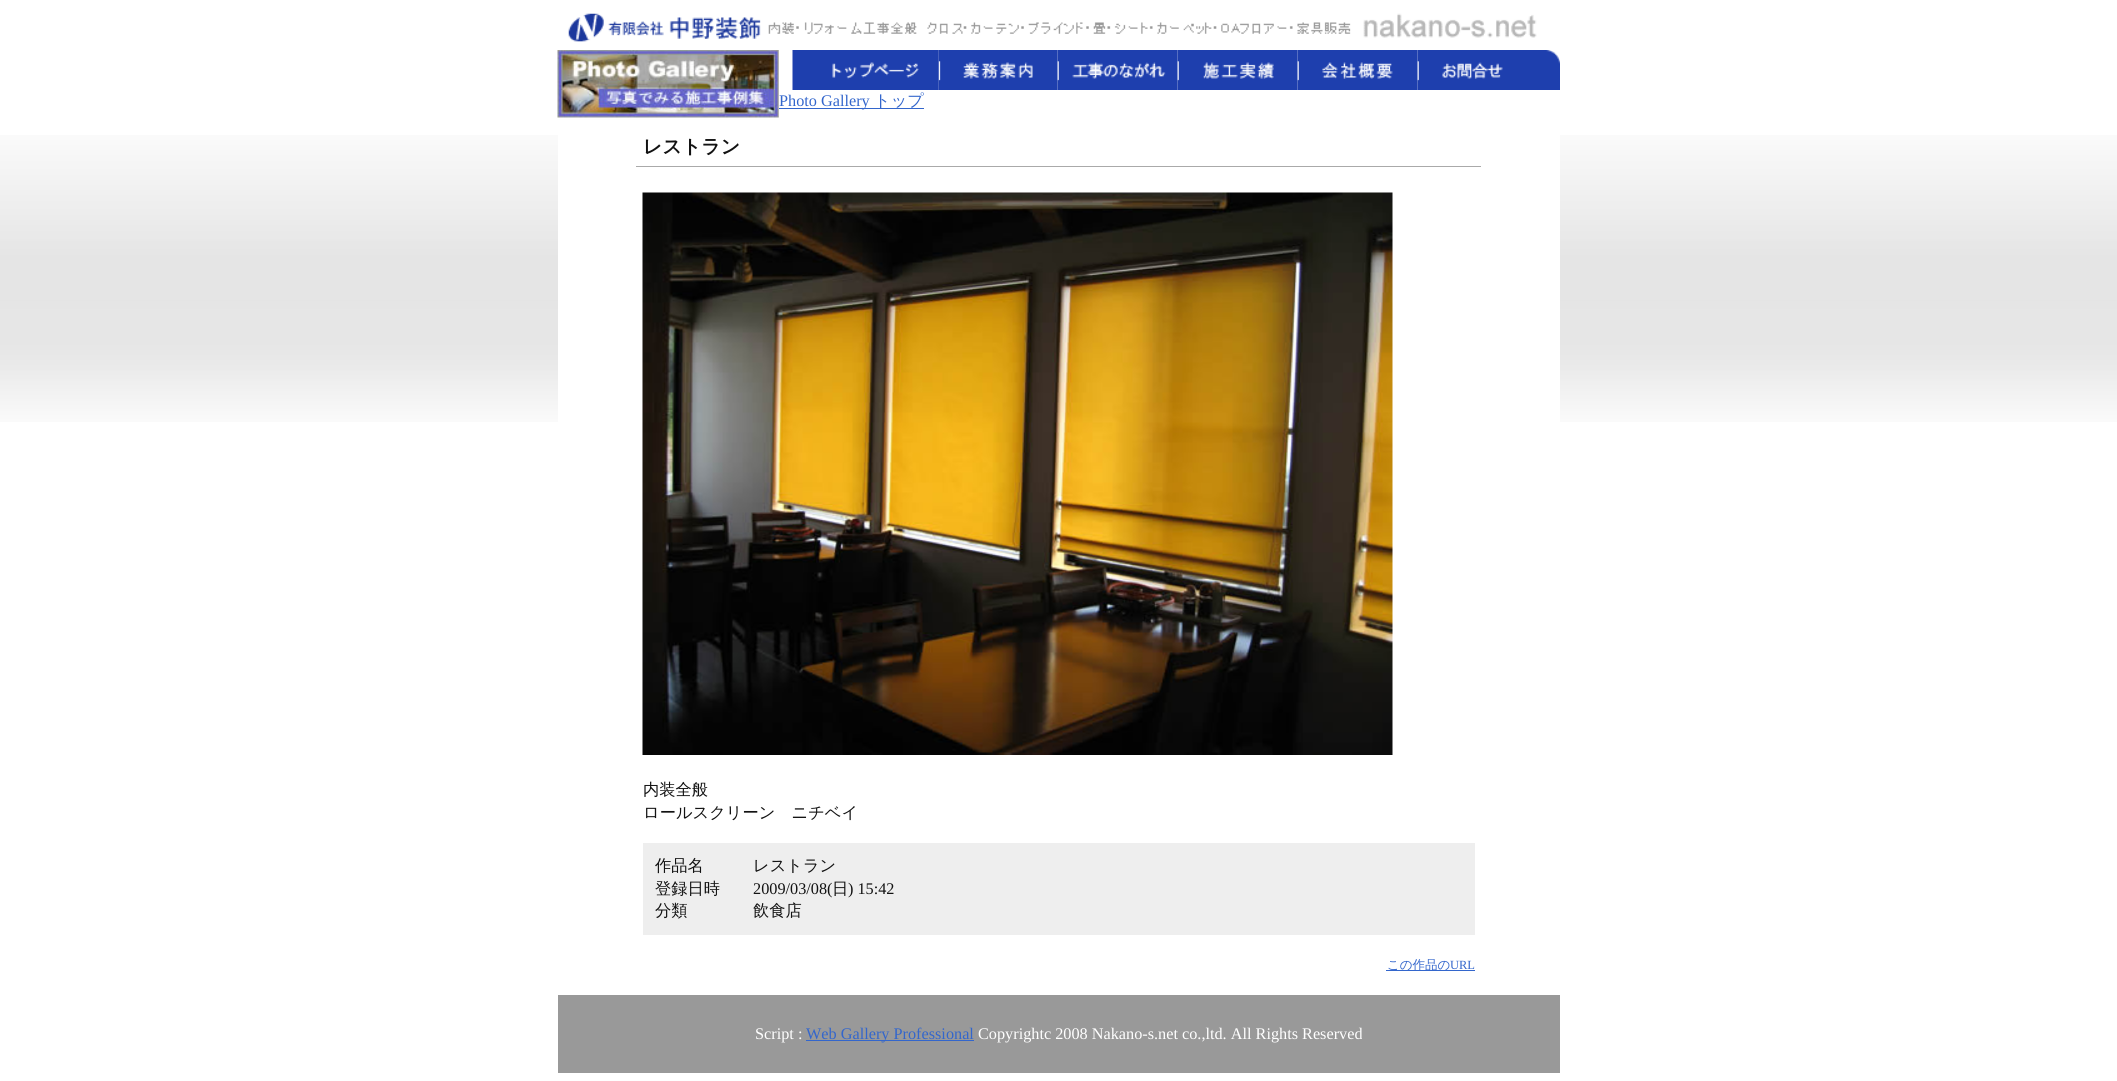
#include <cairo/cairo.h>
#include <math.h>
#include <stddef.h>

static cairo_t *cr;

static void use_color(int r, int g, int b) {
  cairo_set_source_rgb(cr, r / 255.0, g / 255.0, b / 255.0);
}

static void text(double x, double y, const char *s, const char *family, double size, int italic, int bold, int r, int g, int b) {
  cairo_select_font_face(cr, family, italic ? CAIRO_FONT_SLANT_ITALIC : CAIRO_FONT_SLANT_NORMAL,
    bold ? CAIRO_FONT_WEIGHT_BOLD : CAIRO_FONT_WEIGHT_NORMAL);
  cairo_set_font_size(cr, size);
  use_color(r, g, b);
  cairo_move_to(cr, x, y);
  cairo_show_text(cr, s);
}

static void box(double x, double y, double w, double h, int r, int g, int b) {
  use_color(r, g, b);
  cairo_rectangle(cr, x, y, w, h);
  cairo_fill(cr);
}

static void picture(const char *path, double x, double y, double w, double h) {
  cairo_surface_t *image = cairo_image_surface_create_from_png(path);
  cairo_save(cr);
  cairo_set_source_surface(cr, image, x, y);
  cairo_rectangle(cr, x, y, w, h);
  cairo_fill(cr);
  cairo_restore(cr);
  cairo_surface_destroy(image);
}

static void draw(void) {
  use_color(255, 255, 255);
  cairo_paint(cr);
  picture("img_01.png", 0, 135, 2117, 287);
  picture("img_02.png", 568, 13, 969, 29);
  box(558, 135, 1002, 287, 255, 255, 255);
  picture("img_03.png", 557, 50, 222, 68);
  picture("img_04.png", 792, 50, 147, 40);
  picture("img_05.png", 938, 50, 120, 40);
  picture("img_06.png", 1057, 50, 121, 40);
  picture("img_07.png", 1177, 50, 121, 40);
  picture("img_08.png", 1297, 50, 121, 40);
  picture("img_09.png", 1417, 50, 143, 40);
  box(779, 108, 145, 1, 51, 102, 204);
  box(636, 166, 845, 1, 170, 170, 170);
  picture("img_10.png", 642, 192, 751, 563);
  box(643, 843, 832, 92, 238, 238, 238);
  box(1386, 970, 89, 1, 51, 102, 204);
  box(558, 995, 1002, 78, 153, 153, 153);
  box(806, 1040, 168, 1, 51, 102, 204);
  text(779, 106, "Photo Gallery", "Liberation Serif", 16.25, 0, 0, 51, 102, 204);
  text(874, 106, "トップ", "WenQuanYi Zen Hei Medium", 16.25, 0, 0, 51, 102, 204);
  text(643, 153, "レストラン", "WenQuanYi Zen Hei", 19, 0, 1, 18, 18, 18);
  text(643, 795, "内装全般", "WenQuanYi Zen Hei Medium", 16.25, 0, 0, 18, 18, 18);
  text(643, 818, "ロールスクリーン　ニチベイ", "WenQuanYi Zen Hei Medium", 16.25, 0, 0, 18, 18, 18);
  text(655, 871, "作品名", "WenQuanYi Zen Hei Medium", 16.25, 0, 0, 18, 18, 18);
  text(753, 871, "レストラン", "WenQuanYi Zen Hei Medium", 16.25, 0, 0, 18, 18, 18);
  text(655, 894, "登録日時", "WenQuanYi Zen Hei Medium", 16.25, 0, 0, 18, 18, 18);
  text(753, 894, "2009/03/08(", "Liberation Serif", 16.25, 0, 0, 18, 18, 18);
  text(832, 894, "日", "WenQuanYi Zen Hei Medium", 16.25, 0, 0, 18, 18, 18);
  text(848, 894, ") 15:42", "Liberation Serif", 16.25, 0, 0, 18, 18, 18);
  text(655, 916, "分類", "WenQuanYi Zen Hei Medium", 16.25, 0, 0, 18, 18, 18);
  text(753, 916, "飲食店", "WenQuanYi Zen Hei Medium", 16.25, 0, 0, 18, 18, 18);
  text(1387, 969, "この作品の", "WenQuanYi Zen Hei Medium", 12.5, 0, 0, 51, 102, 204);
  text(1450, 969, "URL", "Liberation Serif", 12.5, 0, 0, 51, 102, 204);
  text(755, 1039, "Script :", "Liberation Serif", 16.25, 0, 0, 255, 255, 255);
  text(806, 1039, "Web Gallery Professional", "Liberation Serif", 16.25, 0, 0, 51, 102, 204);
  text(978, 1039, "Copyrightc 2008 Nakano-s.net co.,ltd. All Rights Reserved", "Liberation Serif", 16.25, 0, 0, 255, 255, 255);
}

int main(void) {
  cairo_surface_t *surface = cairo_image_surface_create(CAIRO_FORMAT_RGB24, 2117, 1081);
  cr = cairo_create(surface);
  cairo_font_options_t *options = cairo_font_options_create();
  cairo_font_options_set_hint_metrics(options, CAIRO_HINT_METRICS_OFF);
  cairo_font_options_set_hint_style(options, CAIRO_HINT_STYLE_NONE);
  cairo_set_font_options(cr, options);
  cairo_set_miter_limit(cr, 4);
  draw();
  cairo_surface_write_to_png(surface, "out.png");
  cairo_font_options_destroy(options);
  cairo_destroy(cr);
  cairo_surface_destroy(surface);
  return 0;
}
